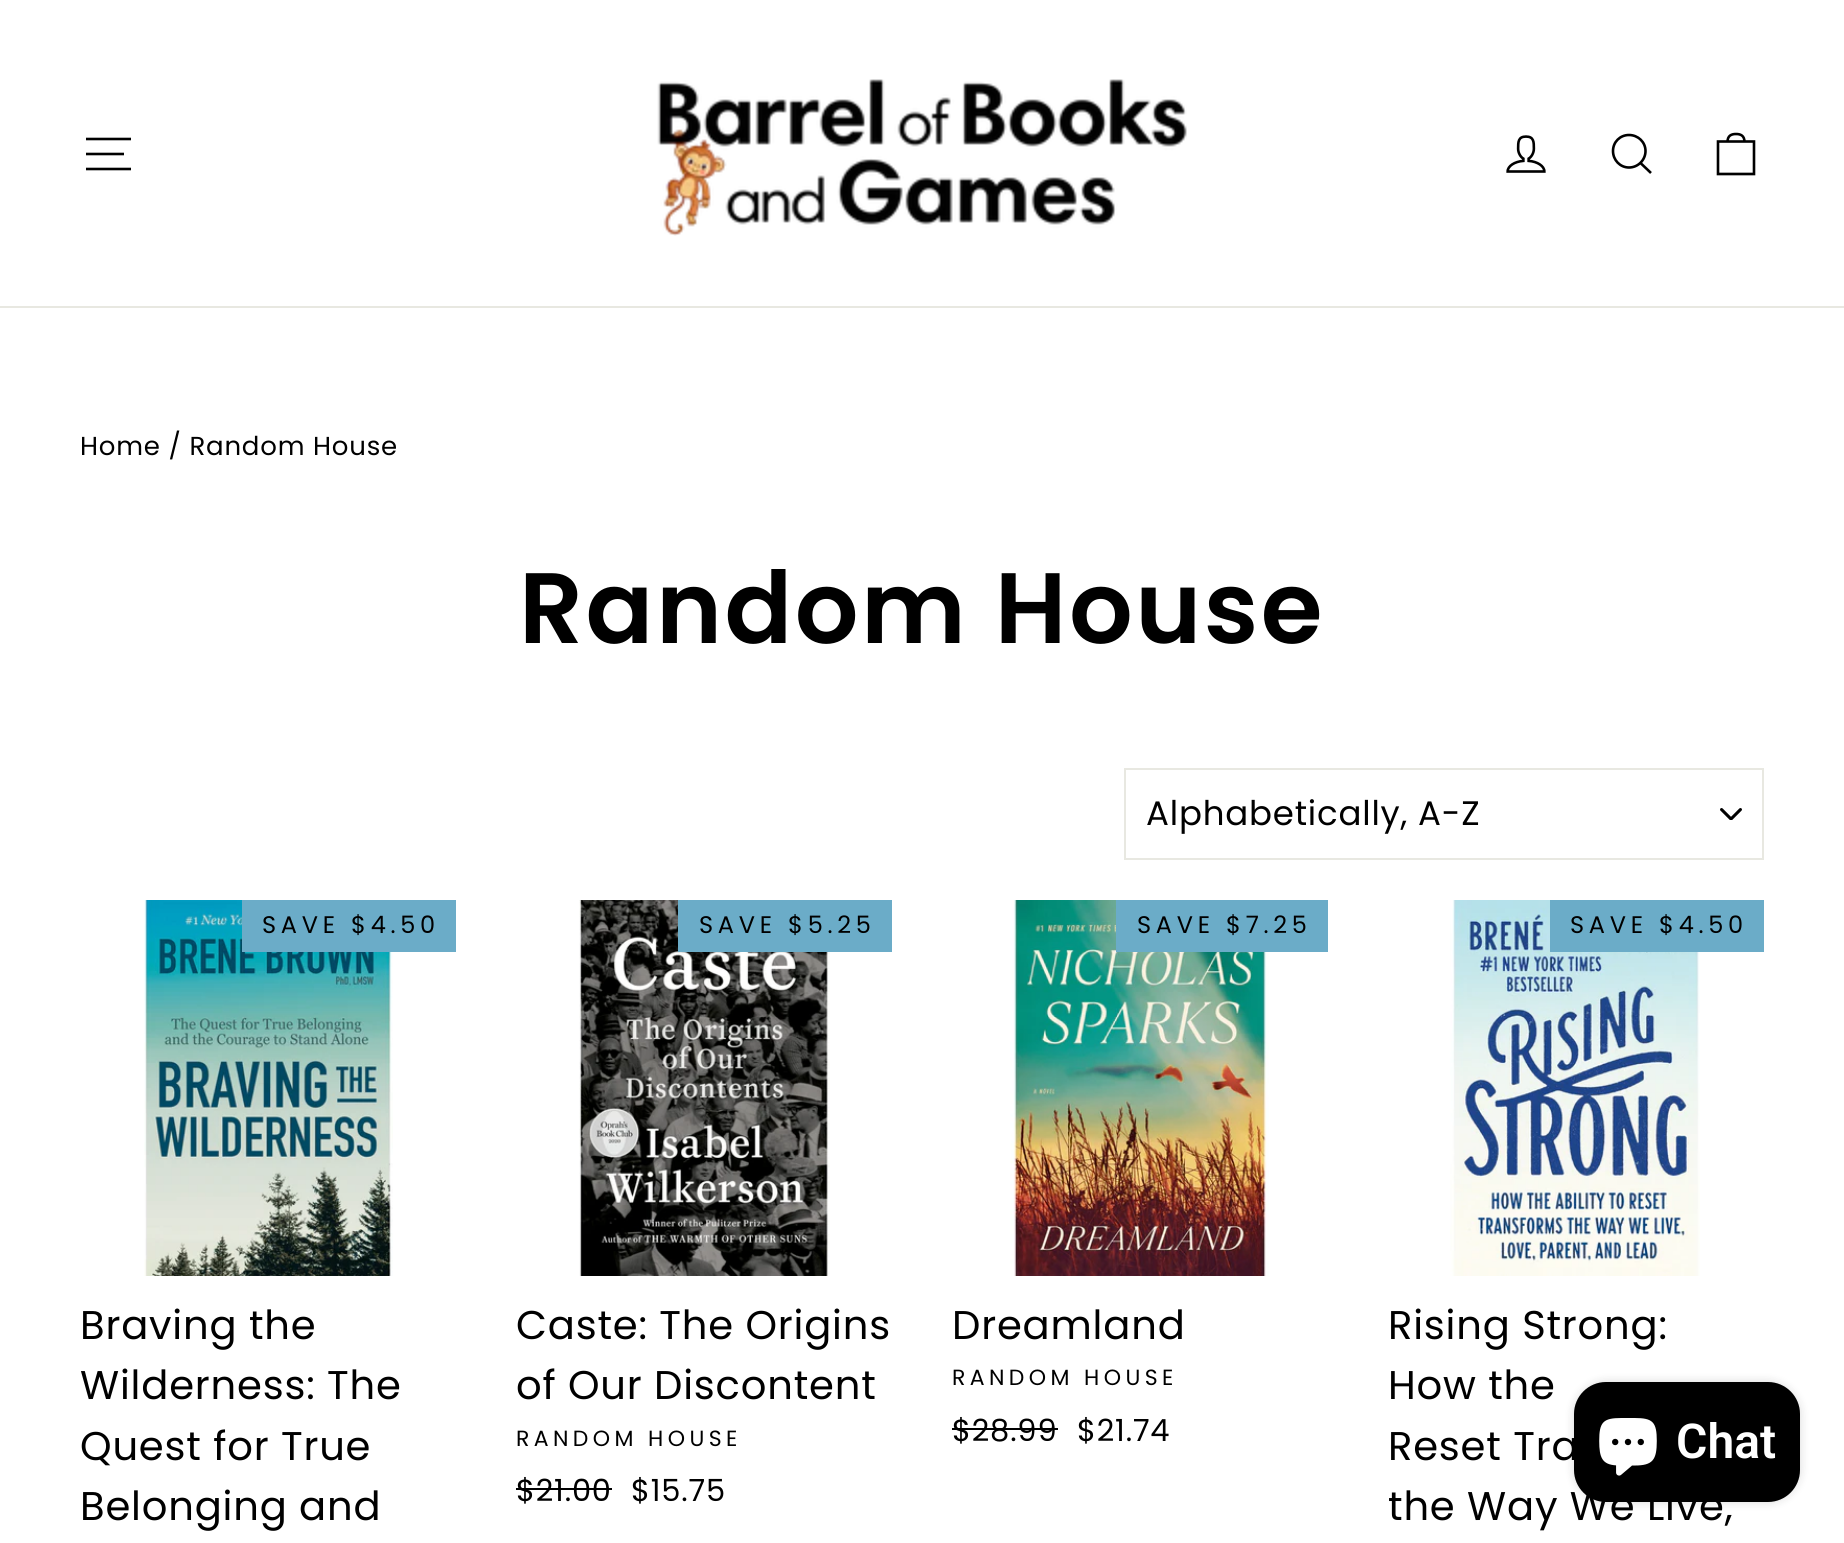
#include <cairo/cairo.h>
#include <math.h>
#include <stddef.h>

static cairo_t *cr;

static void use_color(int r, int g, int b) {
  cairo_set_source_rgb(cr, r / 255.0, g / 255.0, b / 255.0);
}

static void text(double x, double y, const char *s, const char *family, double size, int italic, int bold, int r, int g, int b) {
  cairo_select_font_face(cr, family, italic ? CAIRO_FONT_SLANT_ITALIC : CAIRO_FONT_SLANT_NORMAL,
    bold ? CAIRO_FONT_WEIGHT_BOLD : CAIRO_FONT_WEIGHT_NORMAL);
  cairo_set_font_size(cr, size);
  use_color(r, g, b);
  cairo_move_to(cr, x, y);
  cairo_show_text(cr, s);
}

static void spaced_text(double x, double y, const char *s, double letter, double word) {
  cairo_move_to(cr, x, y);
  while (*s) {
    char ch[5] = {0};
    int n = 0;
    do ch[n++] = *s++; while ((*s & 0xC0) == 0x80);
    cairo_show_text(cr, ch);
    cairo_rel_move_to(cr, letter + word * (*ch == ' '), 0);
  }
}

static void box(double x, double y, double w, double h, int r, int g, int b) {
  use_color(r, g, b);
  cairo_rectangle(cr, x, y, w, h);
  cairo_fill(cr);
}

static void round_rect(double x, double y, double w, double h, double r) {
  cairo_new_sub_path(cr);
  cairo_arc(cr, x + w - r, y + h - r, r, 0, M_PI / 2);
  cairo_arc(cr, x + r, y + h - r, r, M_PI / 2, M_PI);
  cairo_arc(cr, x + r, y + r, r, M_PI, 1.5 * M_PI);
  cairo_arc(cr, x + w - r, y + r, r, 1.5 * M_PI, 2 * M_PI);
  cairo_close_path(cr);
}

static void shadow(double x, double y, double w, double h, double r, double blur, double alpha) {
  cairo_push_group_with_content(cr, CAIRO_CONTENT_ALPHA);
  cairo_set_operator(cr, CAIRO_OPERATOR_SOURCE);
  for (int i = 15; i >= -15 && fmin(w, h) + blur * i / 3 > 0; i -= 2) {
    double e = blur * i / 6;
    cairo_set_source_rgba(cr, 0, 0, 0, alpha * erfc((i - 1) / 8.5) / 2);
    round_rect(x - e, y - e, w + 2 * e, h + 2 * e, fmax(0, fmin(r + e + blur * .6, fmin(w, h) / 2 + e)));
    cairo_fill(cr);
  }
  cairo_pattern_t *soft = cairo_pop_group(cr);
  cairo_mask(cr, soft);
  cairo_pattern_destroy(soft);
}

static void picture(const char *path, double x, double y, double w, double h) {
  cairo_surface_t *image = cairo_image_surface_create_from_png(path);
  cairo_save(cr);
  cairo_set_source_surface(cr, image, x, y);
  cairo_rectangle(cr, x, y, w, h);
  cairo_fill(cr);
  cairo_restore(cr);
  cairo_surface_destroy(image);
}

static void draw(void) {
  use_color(255, 255, 255);
  cairo_paint(cr);
  box(0, 306, 1844, 2, 232, 232, 225);
  cairo_new_path(cr);
  cairo_move_to(cr, 86, 139);
  cairo_line_to(cr, 131, 139);
  cairo_move_to(cr, 86, 154);
  cairo_line_to(cr, 124, 154);
  cairo_move_to(cr, 86, 169);
  cairo_line_to(cr, 131, 169);
  use_color(0, 0, 0);
  cairo_set_line_width(cr, 2.6);
  cairo_stroke(cr);
  picture("img_01.png", 657, 79, 530, 157);
  picture("img_02.png", 1506, 135, 40, 38);
  cairo_new_path(cr);
  cairo_move_to(cr, 1645.5, 151);
  cairo_curve_to(cr, 1645.5, 160, 1638, 167.5, 1629, 167.5);
  cairo_curve_to(cr, 1620, 167.5, 1613, 160, 1613, 151);
  cairo_curve_to(cr, 1613, 142, 1620, 135, 1629, 135);
  cairo_curve_to(cr, 1638, 135, 1645.5, 142, 1645.5, 151);
  cairo_close_path(cr);
  cairo_move_to(cr, 1651, 173);
  cairo_line_to(cr, 1640.5, 163);
  cairo_stroke(cr);
  cairo_new_path(cr);
  cairo_move_to(cr, 1718, 141.5);
  cairo_line_to(cr, 1754, 141.5);
  cairo_line_to(cr, 1754, 174);
  cairo_line_to(cr, 1718, 174);
  cairo_close_path(cr);
  cairo_move_to(cr, 1727.5, 142);
  cairo_curve_to(cr, 1727.5, 135.5, 1731.5, 134, 1736, 134);
  cairo_curve_to(cr, 1740.5, 134, 1744.5, 135.5, 1744.5, 142);
  cairo_stroke(cr);
  picture("img_03.png", 1720, 808, 22, 12);
  cairo_rectangle(cr, 1125, 769, 638, 90);
  use_color(232, 232, 225);
  cairo_set_line_width(cr, 2);
  cairo_stroke(cr);
  picture("img_04.png", 144, 900, 249, 376);
  box(242, 900, 214, 52, 107, 172, 200);
  picture("img_05.png", 579, 900, 251, 376);
  box(678, 900, 214, 52, 107, 172, 200);
  box(516, 1488, 96, 2, 0, 0, 0);
  picture("img_06.png", 1010, 900, 259, 376);
  box(1116, 900, 212, 52, 107, 172, 200);
  box(952, 1428, 106, 2, 0, 0, 0);
  picture("img_07.png", 1450, 900, 250, 376);
  box(1550, 900, 214, 52, 107, 172, 200);
  use_color(0, 0, 0);
  shadow(1574, 1382, 226, 120, 32, 5, 0.15);
  use_color(0, 0, 0);
  round_rect(1574, 1382, 226, 120, 32);
  cairo_fill(cr);
  picture("img_08.png", 1599, 1418, 58, 58);
  cairo_select_font_face(cr, "Poppins", CAIRO_FONT_SLANT_NORMAL, CAIRO_FONT_WEIGHT_NORMAL);
  cairo_set_font_size(cr, 26);
  spaced_text(80, 455, "Home / Random House", 0.8, 0);
  cairo_select_font_face(cr, "Poppins SemiBold", CAIRO_FONT_SLANT_NORMAL, CAIRO_FONT_WEIGHT_NORMAL);
  cairo_set_font_size(cr, 100);
  spaced_text(519, 643, "Random House", 2.5, 0);
  cairo_select_font_face(cr, "Poppins", CAIRO_FONT_SLANT_NORMAL, CAIRO_FONT_WEIGHT_NORMAL);
  cairo_set_font_size(cr, 34);
  spaced_text(1146, 825, "Alphabetically, A-Z", 0.8, 0);
  cairo_set_font_size(cr, 24);
  spaced_text(262, 933, "SAVE $4.50", 4.75, 0);
  cairo_set_font_size(cr, 40.1);
  spaced_text(80, 1339, "Braving the", 0.8, 0);
  spaced_text(80, 1399, "Wilderness: The", 0.8, 0);
  spaced_text(80, 1460, "Quest for True", 0.8, 0);
  spaced_text(80, 1520, "Belonging and", 0.8, 0);
  cairo_set_font_size(cr, 24);
  spaced_text(699, 933, "SAVE $5.25", 4.75, 0);
  cairo_set_font_size(cr, 40.1);
  spaced_text(516, 1339, "Caste: The Origins", 0.8, 0);
  spaced_text(516, 1399, "of Our Discontent", 0.8, 0);
  cairo_set_font_size(cr, 22);
  spaced_text(516, 1446, "RANDOM HOUSE", 4.4, 0);
  cairo_set_font_size(cr, 30.5);
  spaced_text(516, 1501, "$21.00", 0.8, 0);
  spaced_text(631, 1501, "$15.75", 0.8, 0);
  cairo_set_font_size(cr, 24);
  spaced_text(1137, 933, "SAVE $7.25", 4.75, 0);
  cairo_set_font_size(cr, 40.1);
  spaced_text(952, 1339, "Dreamland", 0.8, 0);
  cairo_set_font_size(cr, 22);
  spaced_text(952, 1385, "RANDOM HOUSE", 4.4, 0);
  cairo_set_font_size(cr, 30.5);
  spaced_text(952, 1441, "$28.99", 0.8, 0);
  spaced_text(1077, 1441, "$21.74", 0.8, 0);
  cairo_set_font_size(cr, 24);
  spaced_text(1570, 933, "SAVE $4.50", 4.75, 0);
  cairo_set_font_size(cr, 40.1);
  spaced_text(1388, 1339, "Rising Strong:", 0.8, 0);
  spaced_text(1388, 1399, "How the", 0.8, 0);
  spaced_text(1388, 1460, "Reset Tra", 0.8, 0);
  spaced_text(1388, 1520, "the Way We Live,", 0.8, 0);
  text(1676, 1458, "Chat", "Roboto SemiBold", 48, 0, 0, 255, 255, 255);
}

int main(void) {
  cairo_surface_t *surface = cairo_image_surface_create(CAIRO_FORMAT_RGB24, 1844, 1543);
  cr = cairo_create(surface);
  cairo_font_options_t *options = cairo_font_options_create();
  cairo_font_options_set_hint_metrics(options, CAIRO_HINT_METRICS_OFF);
  cairo_font_options_set_hint_style(options, CAIRO_HINT_STYLE_NONE);
  cairo_set_font_options(cr, options);
  cairo_set_miter_limit(cr, 4);
  draw();
  cairo_surface_write_to_png(surface, "out.png");
  cairo_font_options_destroy(options);
  cairo_destroy(cr);
  cairo_surface_destroy(surface);
  return 0;
}
